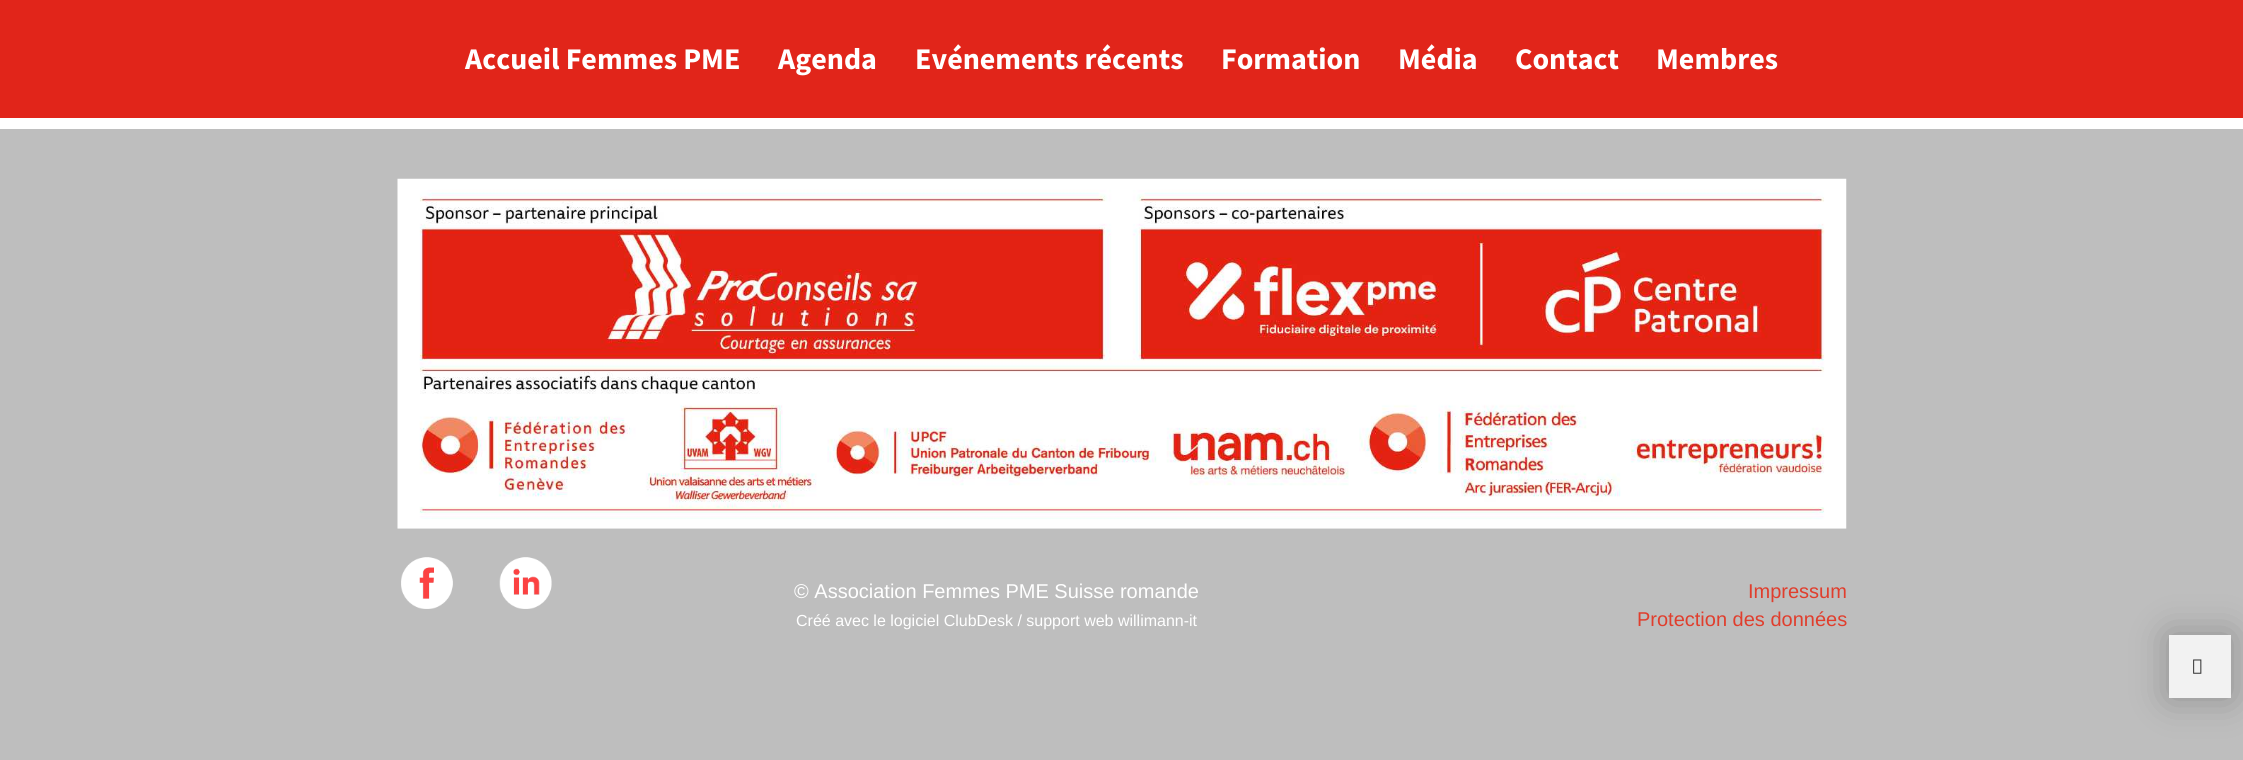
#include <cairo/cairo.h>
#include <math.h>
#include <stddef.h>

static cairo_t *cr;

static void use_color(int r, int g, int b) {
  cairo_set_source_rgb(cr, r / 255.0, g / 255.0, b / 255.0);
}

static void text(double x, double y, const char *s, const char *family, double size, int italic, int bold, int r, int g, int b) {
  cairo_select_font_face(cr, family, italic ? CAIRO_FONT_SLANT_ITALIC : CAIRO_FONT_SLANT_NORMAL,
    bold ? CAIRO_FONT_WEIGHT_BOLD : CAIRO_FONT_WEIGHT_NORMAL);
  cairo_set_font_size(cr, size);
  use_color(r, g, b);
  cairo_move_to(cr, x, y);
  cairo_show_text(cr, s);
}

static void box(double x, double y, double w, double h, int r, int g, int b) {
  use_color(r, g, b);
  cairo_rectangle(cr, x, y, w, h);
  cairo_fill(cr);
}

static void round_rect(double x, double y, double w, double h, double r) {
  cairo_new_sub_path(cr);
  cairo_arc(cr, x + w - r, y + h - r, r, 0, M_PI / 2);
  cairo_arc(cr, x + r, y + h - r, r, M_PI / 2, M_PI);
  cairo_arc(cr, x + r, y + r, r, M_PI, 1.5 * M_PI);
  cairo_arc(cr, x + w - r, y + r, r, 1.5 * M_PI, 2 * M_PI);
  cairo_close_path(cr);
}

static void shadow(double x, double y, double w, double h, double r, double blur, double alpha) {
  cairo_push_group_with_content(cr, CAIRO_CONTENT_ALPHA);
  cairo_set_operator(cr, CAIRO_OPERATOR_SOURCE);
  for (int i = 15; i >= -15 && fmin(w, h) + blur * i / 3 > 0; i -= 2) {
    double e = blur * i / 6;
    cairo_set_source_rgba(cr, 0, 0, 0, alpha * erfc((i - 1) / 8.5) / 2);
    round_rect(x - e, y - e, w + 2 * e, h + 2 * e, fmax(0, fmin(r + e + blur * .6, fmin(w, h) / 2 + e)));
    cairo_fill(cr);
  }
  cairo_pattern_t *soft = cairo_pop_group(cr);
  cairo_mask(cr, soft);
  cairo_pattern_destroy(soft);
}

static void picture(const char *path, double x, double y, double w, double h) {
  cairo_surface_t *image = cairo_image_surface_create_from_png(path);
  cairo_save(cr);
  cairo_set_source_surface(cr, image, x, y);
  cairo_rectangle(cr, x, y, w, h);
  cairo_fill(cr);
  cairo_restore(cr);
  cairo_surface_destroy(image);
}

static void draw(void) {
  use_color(255, 255, 255);
  cairo_paint(cr);
  box(0, 0, 2243, 118, 225, 37, 26);
  box(0, 129, 2243, 631, 190, 190, 190);
  picture("img_01.png", 397, 178, 1450, 351);
  picture("img_02.png", 401, 557, 52, 52);
  picture("img_03.png", 499, 557, 53, 52);
  cairo_save(cr);
  cairo_set_fill_rule(cr, CAIRO_FILL_RULE_EVEN_ODD);
  cairo_new_path(cr);
  cairo_move_to(cr, 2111, 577);
  cairo_line_to(cr, 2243, 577);
  cairo_line_to(cr, 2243, 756);
  cairo_line_to(cr, 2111, 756);
  cairo_close_path(cr);
  cairo_move_to(cr, 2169, 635);
  cairo_line_to(cr, 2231, 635);
  cairo_line_to(cr, 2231, 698);
  cairo_line_to(cr, 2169, 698);
  cairo_close_path(cr);
  cairo_clip(cr);
  use_color(0, 0, 0);
  shadow(2169, 635, 62, 63, 0, 19, 0.25);
  cairo_restore(cr);
  cairo_set_source_rgba(cr, 1, 1, 1, 0.8);
  cairo_rectangle(cr, 2169, 635, 62, 63);
  cairo_fill(cr);
  picture("img_04.png", 2193, 659, 9, 15);
  text(465, 69, "Accueil Femmes PME", "Source Sans Pro", 30, 0, 1, 255, 255, 255);
  text(778, 69, "Agenda", "Source Sans Pro", 30, 0, 1, 255, 255, 255);
  text(915, 69, "Evénements récents", "Source Sans Pro", 30, 0, 1, 255, 255, 255);
  text(1221, 69, "Formation", "Source Sans Pro", 30, 0, 1, 255, 255, 255);
  text(1398, 69, "Média", "Source Sans Pro", 30, 0, 1, 255, 255, 255);
  text(1515, 69, "Contact", "Source Sans Pro", 30, 0, 1, 255, 255, 255);
  text(1656, 69, "Membres", "Source Sans Pro", 30, 0, 1, 255, 255, 255);
  text(794, 598, "© Association Femmes PME Suisse romande", "Liberation Sans", 20, 0, 0, 255, 255, 255);
  text(796, 626, "Créé avec le logiciel ClubDesk / support web willimann-it", "Liberation Sans", 16, 0, 0, 255, 255, 255);
  text(1748, 598, "Impressum", "Liberation Sans", 20, 0, 0, 224, 62, 45);
  text(1637, 626, "Protection des données", "Liberation Sans", 20, 0, 0, 224, 62, 45);
}

int main(void) {
  cairo_surface_t *surface = cairo_image_surface_create(CAIRO_FORMAT_RGB24, 2243, 760);
  cr = cairo_create(surface);
  cairo_font_options_t *options = cairo_font_options_create();
  cairo_font_options_set_hint_metrics(options, CAIRO_HINT_METRICS_OFF);
  cairo_font_options_set_hint_style(options, CAIRO_HINT_STYLE_NONE);
  cairo_set_font_options(cr, options);
  cairo_set_miter_limit(cr, 4);
  draw();
  cairo_surface_write_to_png(surface, "out.png");
  cairo_font_options_destroy(options);
  cairo_destroy(cr);
  cairo_surface_destroy(surface);
  return 0;
}
